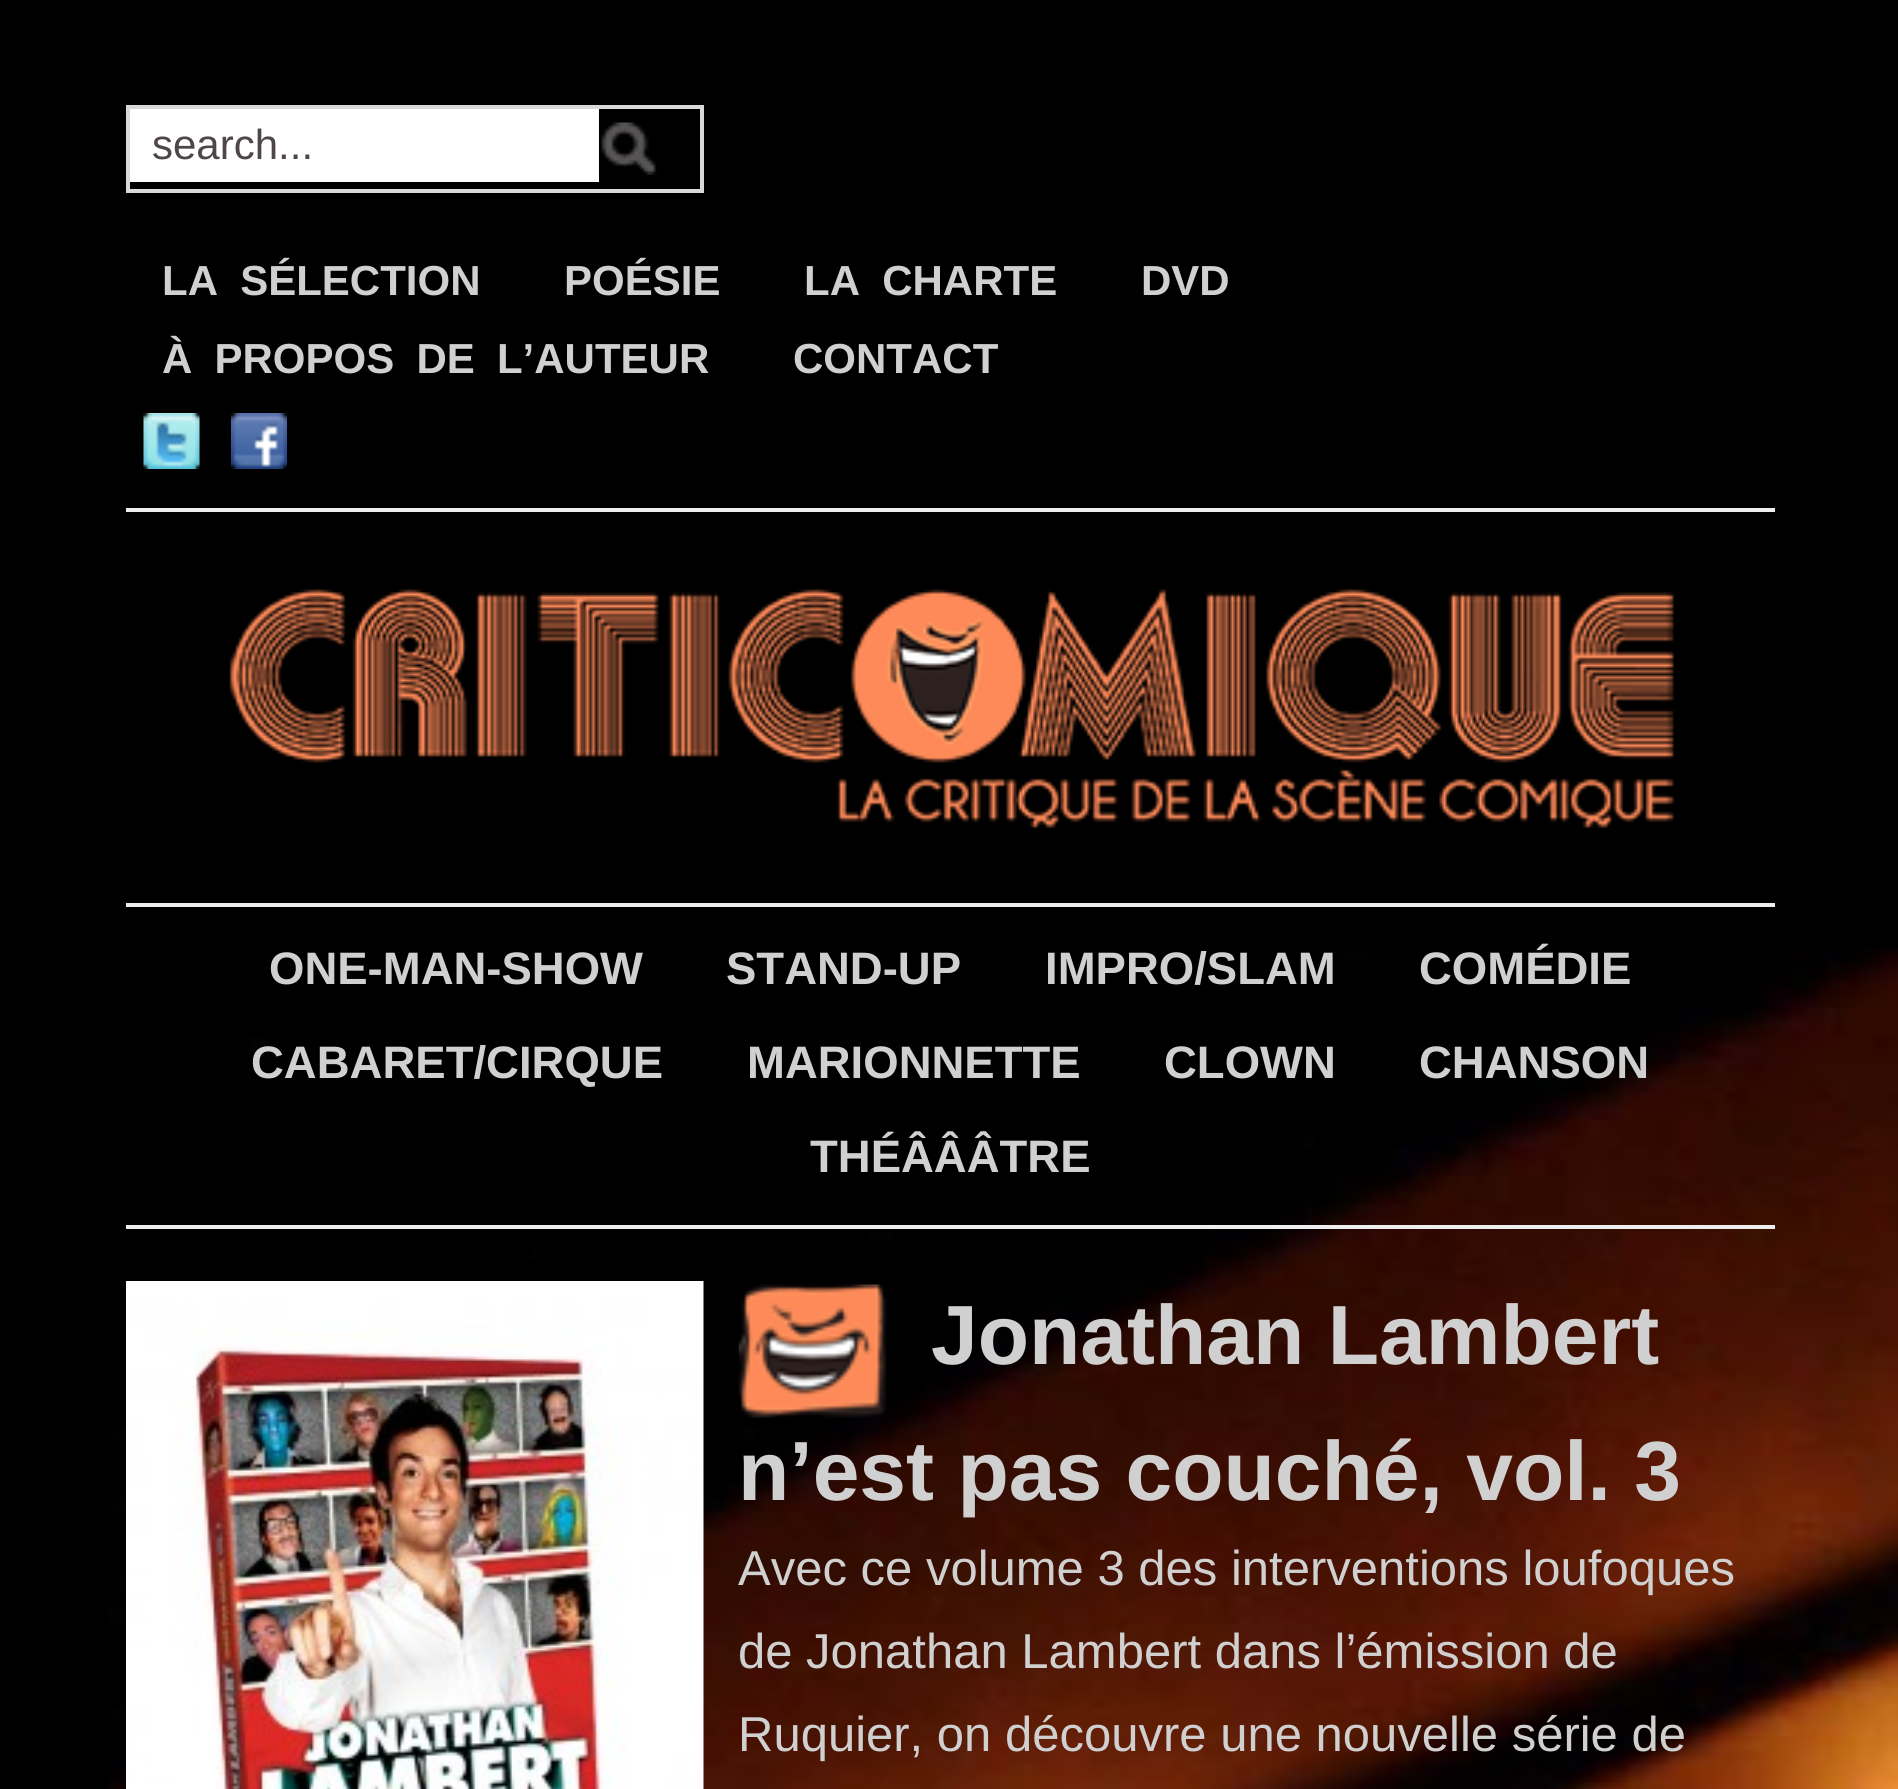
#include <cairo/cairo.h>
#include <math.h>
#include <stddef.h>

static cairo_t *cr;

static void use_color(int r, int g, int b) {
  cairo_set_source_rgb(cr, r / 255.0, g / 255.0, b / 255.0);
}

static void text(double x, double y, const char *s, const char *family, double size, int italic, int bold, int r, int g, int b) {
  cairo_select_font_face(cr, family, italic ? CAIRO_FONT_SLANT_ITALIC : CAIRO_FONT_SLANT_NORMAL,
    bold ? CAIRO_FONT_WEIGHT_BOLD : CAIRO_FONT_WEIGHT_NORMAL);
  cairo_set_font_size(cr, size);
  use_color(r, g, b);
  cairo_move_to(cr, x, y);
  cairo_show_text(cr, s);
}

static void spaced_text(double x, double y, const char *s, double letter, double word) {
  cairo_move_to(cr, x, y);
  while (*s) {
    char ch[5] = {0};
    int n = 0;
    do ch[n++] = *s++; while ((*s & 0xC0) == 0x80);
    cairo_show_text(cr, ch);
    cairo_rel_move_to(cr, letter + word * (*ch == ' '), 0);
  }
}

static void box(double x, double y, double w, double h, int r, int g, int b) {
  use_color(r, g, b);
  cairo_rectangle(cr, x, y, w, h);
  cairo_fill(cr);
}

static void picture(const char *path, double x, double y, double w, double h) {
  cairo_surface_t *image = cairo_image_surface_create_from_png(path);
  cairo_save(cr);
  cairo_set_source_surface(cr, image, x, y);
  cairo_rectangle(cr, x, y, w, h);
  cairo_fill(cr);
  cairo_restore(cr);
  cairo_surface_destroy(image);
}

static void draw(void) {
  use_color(0, 0, 0);
  cairo_paint(cr);
  picture("img_01.png", 107, 947, 1791, 842);
  cairo_rectangle(cr, 128, 107, 574, 84);
  use_color(218, 216, 216);
  cairo_set_line_width(cr, 4);
  cairo_stroke(cr);
  box(130, 109, 469, 73, 255, 255, 255);
  picture("img_02.png", 600, 122, 58, 53);
  picture("img_03.png", 143, 413, 57, 56);
  picture("img_04.png", 231, 413, 56, 56);
  box(126, 508, 1649, 4, 238, 238, 238);
  picture("img_05.png", 229, 589, 1445, 240);
  box(126, 903, 1649, 4, 238, 238, 238);
  box(126, 1225, 1649, 4, 238, 238, 238);
  picture("img_06.png", 126, 1281, 578, 508);
  picture("img_07.png", 738, 1284, 149, 134);
  text(152, 159, "search...", "Liberation Sans", 42, 0, 0, 79, 71, 71);
  cairo_select_font_face(cr, "Liberation Sans", CAIRO_FONT_SLANT_NORMAL, CAIRO_FONT_WEIGHT_BOLD);
  use_color(208, 208, 208);
  spaced_text(162, 295, "LA SÉLECTION", 0, 10.5);
  text(564, 295, "POÉSIE", "Liberation Sans", 42, 0, 1, 208, 208, 208);
  spaced_text(804, 295, "LA CHARTE", 0, 10.5);
  text(1141, 295, "DVD", "Liberation Sans", 42, 0, 1, 208, 208, 208);
  spaced_text(162, 373, "À PROPOS DE L’AUTEUR", 0, 10.5);
  text(793, 373, "CONTACT", "Liberation Sans", 42, 0, 1, 208, 208, 208);
  text(269, 984, "ONE-MAN-SHOW", "Liberation Sans", 45.5, 0, 1, 208, 208, 208);
  text(726, 984, "STAND-UP", "Liberation Sans", 45.5, 0, 1, 208, 208, 208);
  text(1045, 984, "IMPRO/SLAM", "Liberation Sans", 45.5, 0, 1, 208, 208, 208);
  text(1419, 984, "COMÉDIE", "Liberation Sans", 45.5, 0, 1, 208, 208, 208);
  text(251, 1078, "CABARET/CIRQUE", "Liberation Sans", 45.5, 0, 1, 208, 208, 208);
  text(747, 1078, "MARIONNETTE", "Liberation Sans", 45.5, 0, 1, 208, 208, 208);
  text(1164, 1078, "CLOWN", "Liberation Sans", 45.5, 0, 1, 208, 208, 208);
  text(1419, 1078, "CHANSON", "Liberation Sans", 45.5, 0, 1, 208, 208, 208);
  text(810, 1172, "THÉÂÂÂTRE", "Liberation Sans", 45.5, 0, 1, 208, 208, 208);
  text(931, 1364, "Jonathan Lambert", "Liberation Sans", 84, 0, 1, 208, 208, 208);
  text(738, 1500, "n’est pas couché, vol. 3", "Liberation Sans", 84, 0, 1, 208, 208, 208);
  text(738, 1585, "Avec ce volume 3 des interventions loufoques", "Liberation Sans", 49, 0, 0, 208, 208, 208);
  text(738, 1668, "de Jonathan Lambert dans l’émission de", "Liberation Sans", 49, 0, 0, 208, 208, 208);
  text(738, 1751, "Ruquier, on découvre une nouvelle série de", "Liberation Sans", 49, 0, 0, 208, 208, 208);
}

int main(void) {
  cairo_surface_t *surface = cairo_image_surface_create(CAIRO_FORMAT_RGB24, 1898, 1789);
  cr = cairo_create(surface);
  cairo_font_options_t *options = cairo_font_options_create();
  cairo_font_options_set_hint_metrics(options, CAIRO_HINT_METRICS_OFF);
  cairo_font_options_set_hint_style(options, CAIRO_HINT_STYLE_NONE);
  cairo_set_font_options(cr, options);
  cairo_set_miter_limit(cr, 4);
  draw();
  cairo_surface_write_to_png(surface, "out.png");
  cairo_font_options_destroy(options);
  cairo_destroy(cr);
  cairo_surface_destroy(surface);
  return 0;
}
